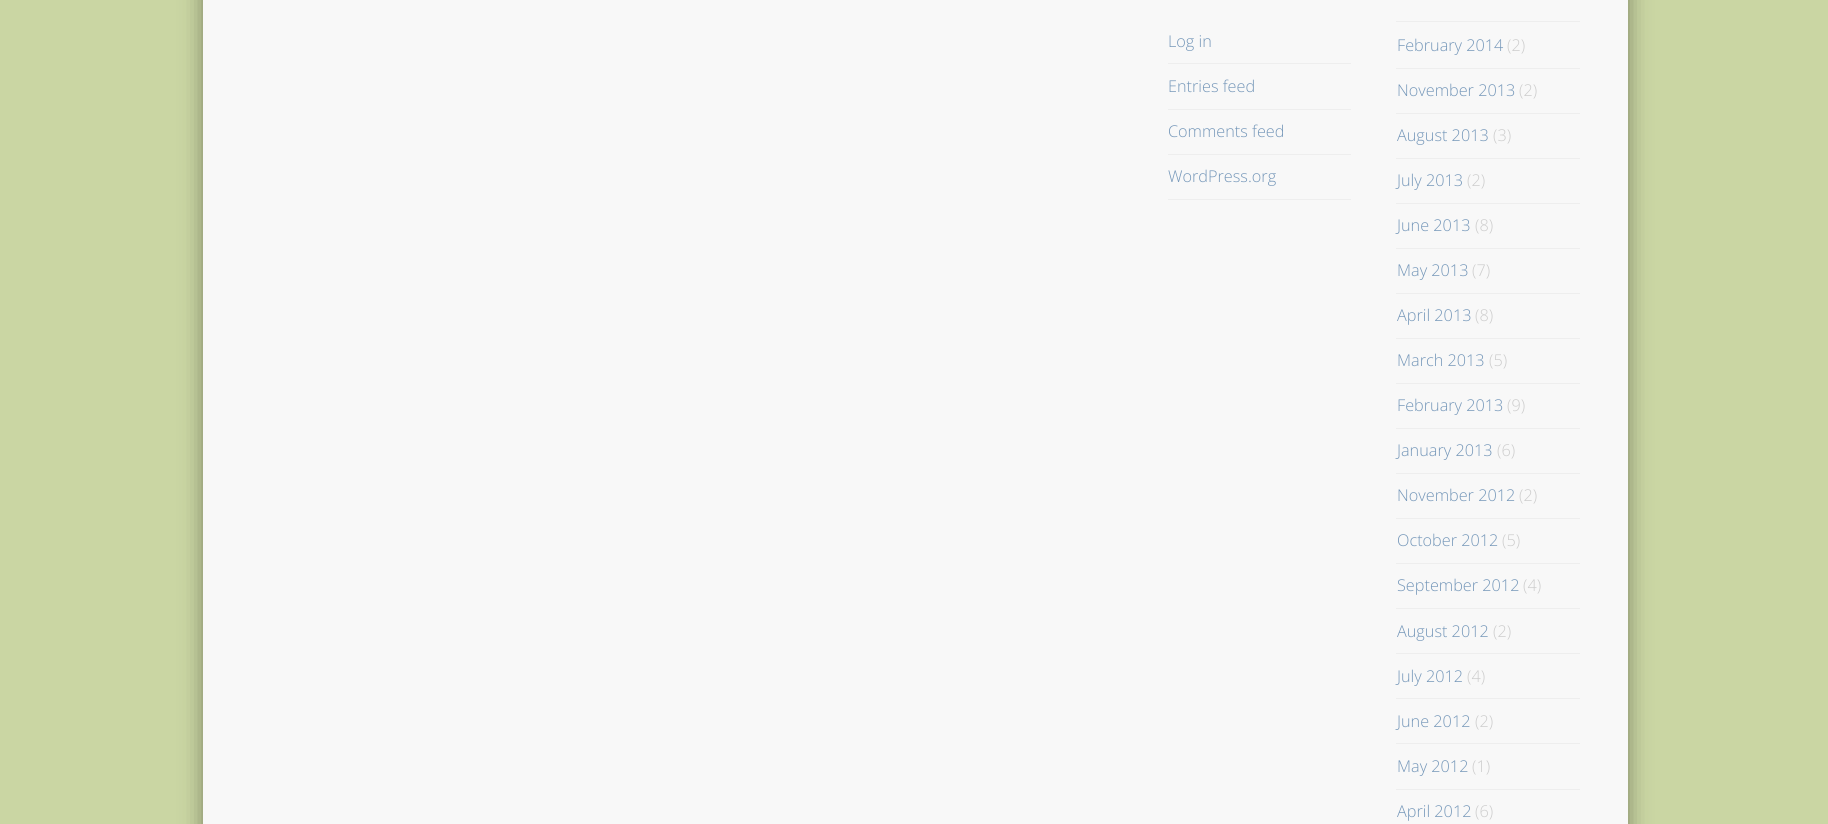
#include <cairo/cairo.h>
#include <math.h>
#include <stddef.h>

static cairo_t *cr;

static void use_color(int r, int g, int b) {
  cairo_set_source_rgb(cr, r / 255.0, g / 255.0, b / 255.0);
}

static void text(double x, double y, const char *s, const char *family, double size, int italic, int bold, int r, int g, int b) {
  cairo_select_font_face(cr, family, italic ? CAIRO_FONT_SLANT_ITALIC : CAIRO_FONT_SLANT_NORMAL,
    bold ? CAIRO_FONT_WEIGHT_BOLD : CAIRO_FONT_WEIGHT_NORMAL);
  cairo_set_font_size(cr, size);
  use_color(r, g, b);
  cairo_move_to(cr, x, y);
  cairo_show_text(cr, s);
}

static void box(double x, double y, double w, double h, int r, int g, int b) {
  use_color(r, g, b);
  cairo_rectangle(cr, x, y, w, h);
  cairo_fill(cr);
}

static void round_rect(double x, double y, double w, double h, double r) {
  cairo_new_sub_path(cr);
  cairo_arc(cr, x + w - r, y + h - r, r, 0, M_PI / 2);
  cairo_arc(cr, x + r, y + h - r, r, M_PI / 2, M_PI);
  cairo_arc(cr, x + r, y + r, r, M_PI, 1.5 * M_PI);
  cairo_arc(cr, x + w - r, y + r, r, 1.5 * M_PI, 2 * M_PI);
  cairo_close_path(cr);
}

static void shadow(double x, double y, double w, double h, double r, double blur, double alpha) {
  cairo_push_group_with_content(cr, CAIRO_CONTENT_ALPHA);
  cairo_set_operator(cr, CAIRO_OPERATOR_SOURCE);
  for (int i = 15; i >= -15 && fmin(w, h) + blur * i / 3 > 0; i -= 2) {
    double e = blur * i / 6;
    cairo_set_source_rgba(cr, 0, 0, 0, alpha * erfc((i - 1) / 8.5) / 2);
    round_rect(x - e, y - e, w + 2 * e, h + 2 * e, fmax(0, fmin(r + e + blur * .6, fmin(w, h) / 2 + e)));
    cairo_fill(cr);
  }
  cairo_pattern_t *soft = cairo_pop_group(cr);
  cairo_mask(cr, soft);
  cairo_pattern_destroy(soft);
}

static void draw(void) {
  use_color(202, 214, 163);
  cairo_paint(cr);
  use_color(0, 0, 0);
  shadow(203, -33, 1425, 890, 0, 11, 0.4);
  box(203, 0, 1425, 824, 248, 248, 248);
  box(1168, 63, 183, 1, 238, 238, 238);
  box(1168, 109, 183, 1, 238, 238, 238);
  box(1168, 154, 183, 1, 238, 238, 238);
  box(1168, 199, 183, 1, 238, 238, 238);
  box(1396, 21, 184, 1, 238, 238, 238);
  box(1396, 68, 184, 1, 238, 238, 238);
  box(1396, 113, 184, 1, 238, 238, 238);
  box(1396, 158, 184, 1, 238, 238, 238);
  box(1396, 203, 184, 1, 238, 238, 238);
  box(1396, 248, 184, 1, 238, 238, 238);
  box(1396, 293, 184, 1, 238, 238, 238);
  box(1396, 338, 184, 1, 238, 238, 238);
  box(1396, 383, 184, 1, 238, 238, 238);
  box(1396, 428, 184, 1, 238, 238, 238);
  box(1396, 473, 184, 1, 238, 238, 238);
  box(1396, 518, 184, 1, 238, 238, 238);
  box(1396, 563, 184, 1, 238, 238, 238);
  box(1396, 608, 184, 1, 238, 238, 238);
  box(1396, 653, 184, 1, 238, 238, 238);
  box(1396, 698, 184, 1, 238, 238, 238);
  box(1396, 743, 184, 1, 238, 238, 238);
  box(1396, 789, 184, 1, 238, 238, 238);
  text(1168, 47, "Log in", "Open Sans Light", 16.25, 0, 0, 117, 151, 185);
  text(1168, 92, "Entries feed", "Open Sans Light", 16.25, 0, 0, 117, 151, 185);
  text(1168, 137, "Comments feed", "Open Sans Light", 16.25, 0, 0, 117, 151, 185);
  text(1168, 182, "WordPress.org", "Open Sans Light", 16.25, 0, 0, 117, 151, 185);
  text(1397, 51, "February 2014", "Open Sans Light", 16.25, 0, 0, 117, 151, 185);
  text(1507, 51, "(2)", "Open Sans Light", 16.25, 0, 0, 204, 204, 204);
  text(1397, 96, "November 2013", "Open Sans Light", 16.25, 0, 0, 117, 151, 185);
  text(1519, 96, "(2)", "Open Sans Light", 16.25, 0, 0, 204, 204, 204);
  text(1397, 141, "August 2013", "Open Sans Light", 16.25, 0, 0, 117, 151, 185);
  text(1493, 141, "(3)", "Open Sans Light", 16.25, 0, 0, 204, 204, 204);
  text(1397, 186, "July 2013", "Open Sans Light", 16.25, 0, 0, 117, 151, 185);
  text(1467, 186, "(2)", "Open Sans Light", 16.25, 0, 0, 204, 204, 204);
  text(1397, 231, "June 2013", "Open Sans Light", 16.25, 0, 0, 117, 151, 185);
  text(1475, 231, "(8)", "Open Sans Light", 16.25, 0, 0, 204, 204, 204);
  text(1397, 276, "May 2013", "Open Sans Light", 16.25, 0, 0, 117, 151, 185);
  text(1472, 276, "(7)", "Open Sans Light", 16.25, 0, 0, 204, 204, 204);
  text(1397, 321, "April 2013", "Open Sans Light", 16.25, 0, 0, 117, 151, 185);
  text(1475, 321, "(8)", "Open Sans Light", 16.25, 0, 0, 204, 204, 204);
  text(1397, 366, "March 2013", "Open Sans Light", 16.25, 0, 0, 117, 151, 185);
  text(1489, 366, "(5)", "Open Sans Light", 16.25, 0, 0, 204, 204, 204);
  text(1397, 411, "February 2013", "Open Sans Light", 16.25, 0, 0, 117, 151, 185);
  text(1507, 411, "(9)", "Open Sans Light", 16.25, 0, 0, 204, 204, 204);
  text(1397, 456, "January 2013", "Open Sans Light", 16.25, 0, 0, 117, 151, 185);
  text(1497, 456, "(6)", "Open Sans Light", 16.25, 0, 0, 204, 204, 204);
  text(1397, 501, "November 2012", "Open Sans Light", 16.25, 0, 0, 117, 151, 185);
  text(1519, 501, "(2)", "Open Sans Light", 16.25, 0, 0, 204, 204, 204);
  text(1397, 546, "October 2012", "Open Sans Light", 16.25, 0, 0, 117, 151, 185);
  text(1502, 546, "(5)", "Open Sans Light", 16.25, 0, 0, 204, 204, 204);
  text(1397, 591, "September 2012", "Open Sans Light", 16.25, 0, 0, 117, 151, 185);
  text(1523, 591, "(4)", "Open Sans Light", 16.25, 0, 0, 204, 204, 204);
  text(1397, 637, "August 2012", "Open Sans Light", 16.25, 0, 0, 117, 151, 185);
  text(1493, 637, "(2)", "Open Sans Light", 16.25, 0, 0, 204, 204, 204);
  text(1397, 682, "July 2012", "Open Sans Light", 16.25, 0, 0, 117, 151, 185);
  text(1467, 682, "(4)", "Open Sans Light", 16.25, 0, 0, 204, 204, 204);
  text(1397, 727, "June 2012", "Open Sans Light", 16.25, 0, 0, 117, 151, 185);
  text(1475, 727, "(2)", "Open Sans Light", 16.25, 0, 0, 204, 204, 204);
  text(1397, 772, "May 2012", "Open Sans Light", 16.25, 0, 0, 117, 151, 185);
  text(1472, 772, "(1)", "Open Sans Light", 16.25, 0, 0, 204, 204, 204);
  text(1397, 817, "April 2012", "Open Sans Light", 16.25, 0, 0, 117, 151, 185);
  text(1475, 817, "(6)", "Open Sans Light", 16.25, 0, 0, 204, 204, 204);
}

int main(void) {
  cairo_surface_t *surface = cairo_image_surface_create(CAIRO_FORMAT_RGB24, 1828, 824);
  cr = cairo_create(surface);
  cairo_font_options_t *options = cairo_font_options_create();
  cairo_font_options_set_hint_metrics(options, CAIRO_HINT_METRICS_OFF);
  cairo_font_options_set_hint_style(options, CAIRO_HINT_STYLE_NONE);
  cairo_set_font_options(cr, options);
  cairo_set_miter_limit(cr, 4);
  draw();
  cairo_surface_write_to_png(surface, "out.png");
  cairo_font_options_destroy(options);
  cairo_destroy(cr);
  cairo_surface_destroy(surface);
  return 0;
}
